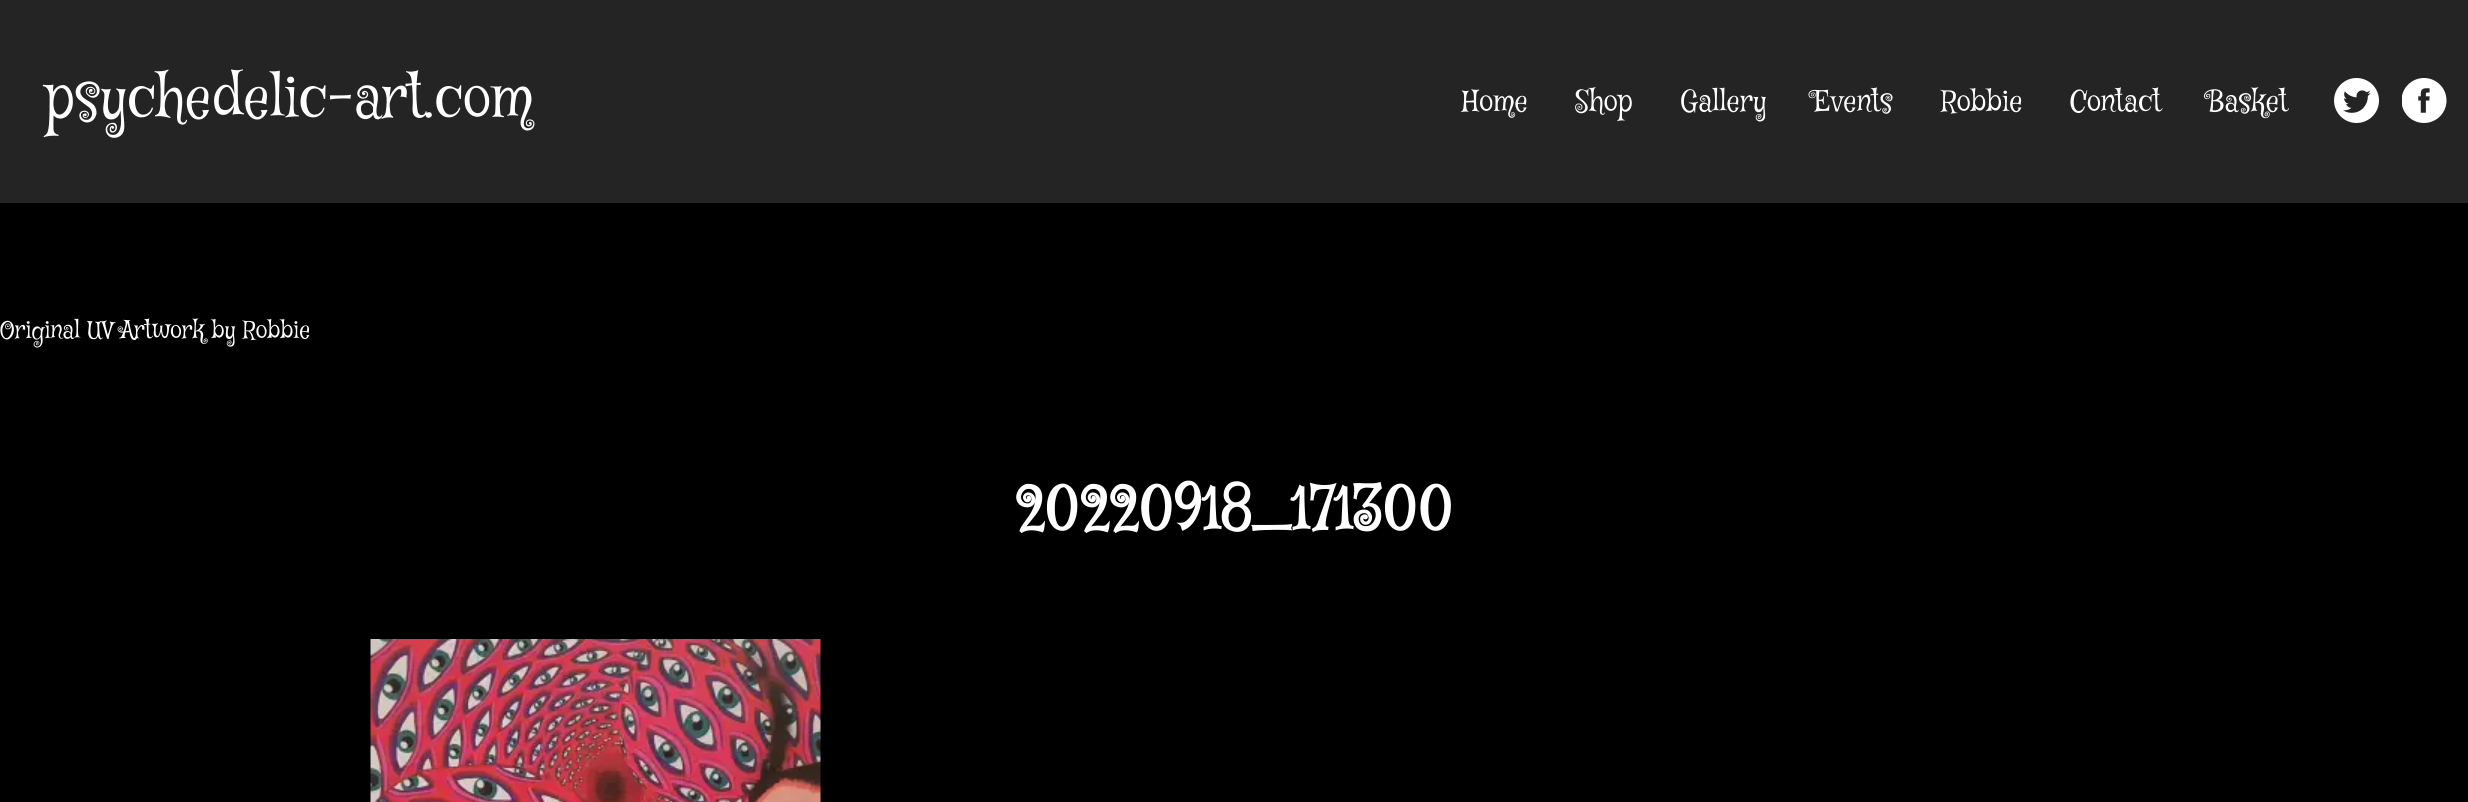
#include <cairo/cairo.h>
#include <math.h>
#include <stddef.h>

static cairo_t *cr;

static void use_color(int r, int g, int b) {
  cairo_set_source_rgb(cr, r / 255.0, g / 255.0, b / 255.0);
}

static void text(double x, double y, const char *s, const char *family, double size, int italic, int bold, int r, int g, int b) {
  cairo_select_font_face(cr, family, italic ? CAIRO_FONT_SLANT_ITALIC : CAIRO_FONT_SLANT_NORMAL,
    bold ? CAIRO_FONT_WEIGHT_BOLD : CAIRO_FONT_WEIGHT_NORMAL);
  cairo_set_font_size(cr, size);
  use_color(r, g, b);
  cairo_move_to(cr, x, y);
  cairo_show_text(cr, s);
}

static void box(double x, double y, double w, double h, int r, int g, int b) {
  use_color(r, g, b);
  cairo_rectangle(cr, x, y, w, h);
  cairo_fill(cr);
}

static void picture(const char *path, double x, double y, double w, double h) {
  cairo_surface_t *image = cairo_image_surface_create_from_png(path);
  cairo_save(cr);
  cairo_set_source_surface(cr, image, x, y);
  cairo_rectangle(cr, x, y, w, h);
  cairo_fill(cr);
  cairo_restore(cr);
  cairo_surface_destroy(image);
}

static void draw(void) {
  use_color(0, 0, 0);
  cairo_paint(cr);
  box(0, 0, 2468, 203, 36, 36, 36);
  picture("img_01.png", 2334, 78, 45, 45);
  picture("img_02.png", 2402, 78, 45, 45);
  picture("img_03.png", 370, 639, 451, 163);
  text(45, 117, "psychedelic-art.com", "Mystery Quest", 57.5, 0, 0, 255, 255, 255);
  text(0, 338, "Original UV Artwork by Robbie", "Mystery Quest", 24, 0, 0, 255, 255, 255);
  text(1462, 111, "Home", "Mystery Quest", 29, 0, 0, 255, 255, 255);
  text(1575, 111, "Shop", "Mystery Quest", 29, 0, 0, 255, 255, 255);
  text(1681, 111, "Gallery", "Mystery Quest", 29, 0, 0, 255, 255, 255);
  text(1813, 111, "Events", "Mystery Quest", 29, 0, 0, 255, 255, 255);
  text(1941, 111, "Robbie", "Mystery Quest", 29, 0, 0, 255, 255, 255);
  text(2070, 111, "Contact", "Mystery Quest", 29, 0, 0, 255, 255, 255);
  text(2208, 111, "Basket", "Mystery Quest", 29, 0, 0, 255, 255, 255);
  text(1015, 530, "20220918_171300", "Mystery Quest", 60, 0, 1, 255, 255, 255);
}

int main(void) {
  cairo_surface_t *surface = cairo_image_surface_create(CAIRO_FORMAT_RGB24, 2468, 802);
  cr = cairo_create(surface);
  cairo_font_options_t *options = cairo_font_options_create();
  cairo_font_options_set_hint_metrics(options, CAIRO_HINT_METRICS_OFF);
  cairo_font_options_set_hint_style(options, CAIRO_HINT_STYLE_NONE);
  cairo_set_font_options(cr, options);
  cairo_set_miter_limit(cr, 4);
  draw();
  cairo_surface_write_to_png(surface, "out.png");
  cairo_font_options_destroy(options);
  cairo_destroy(cr);
  cairo_surface_destroy(surface);
  return 0;
}
